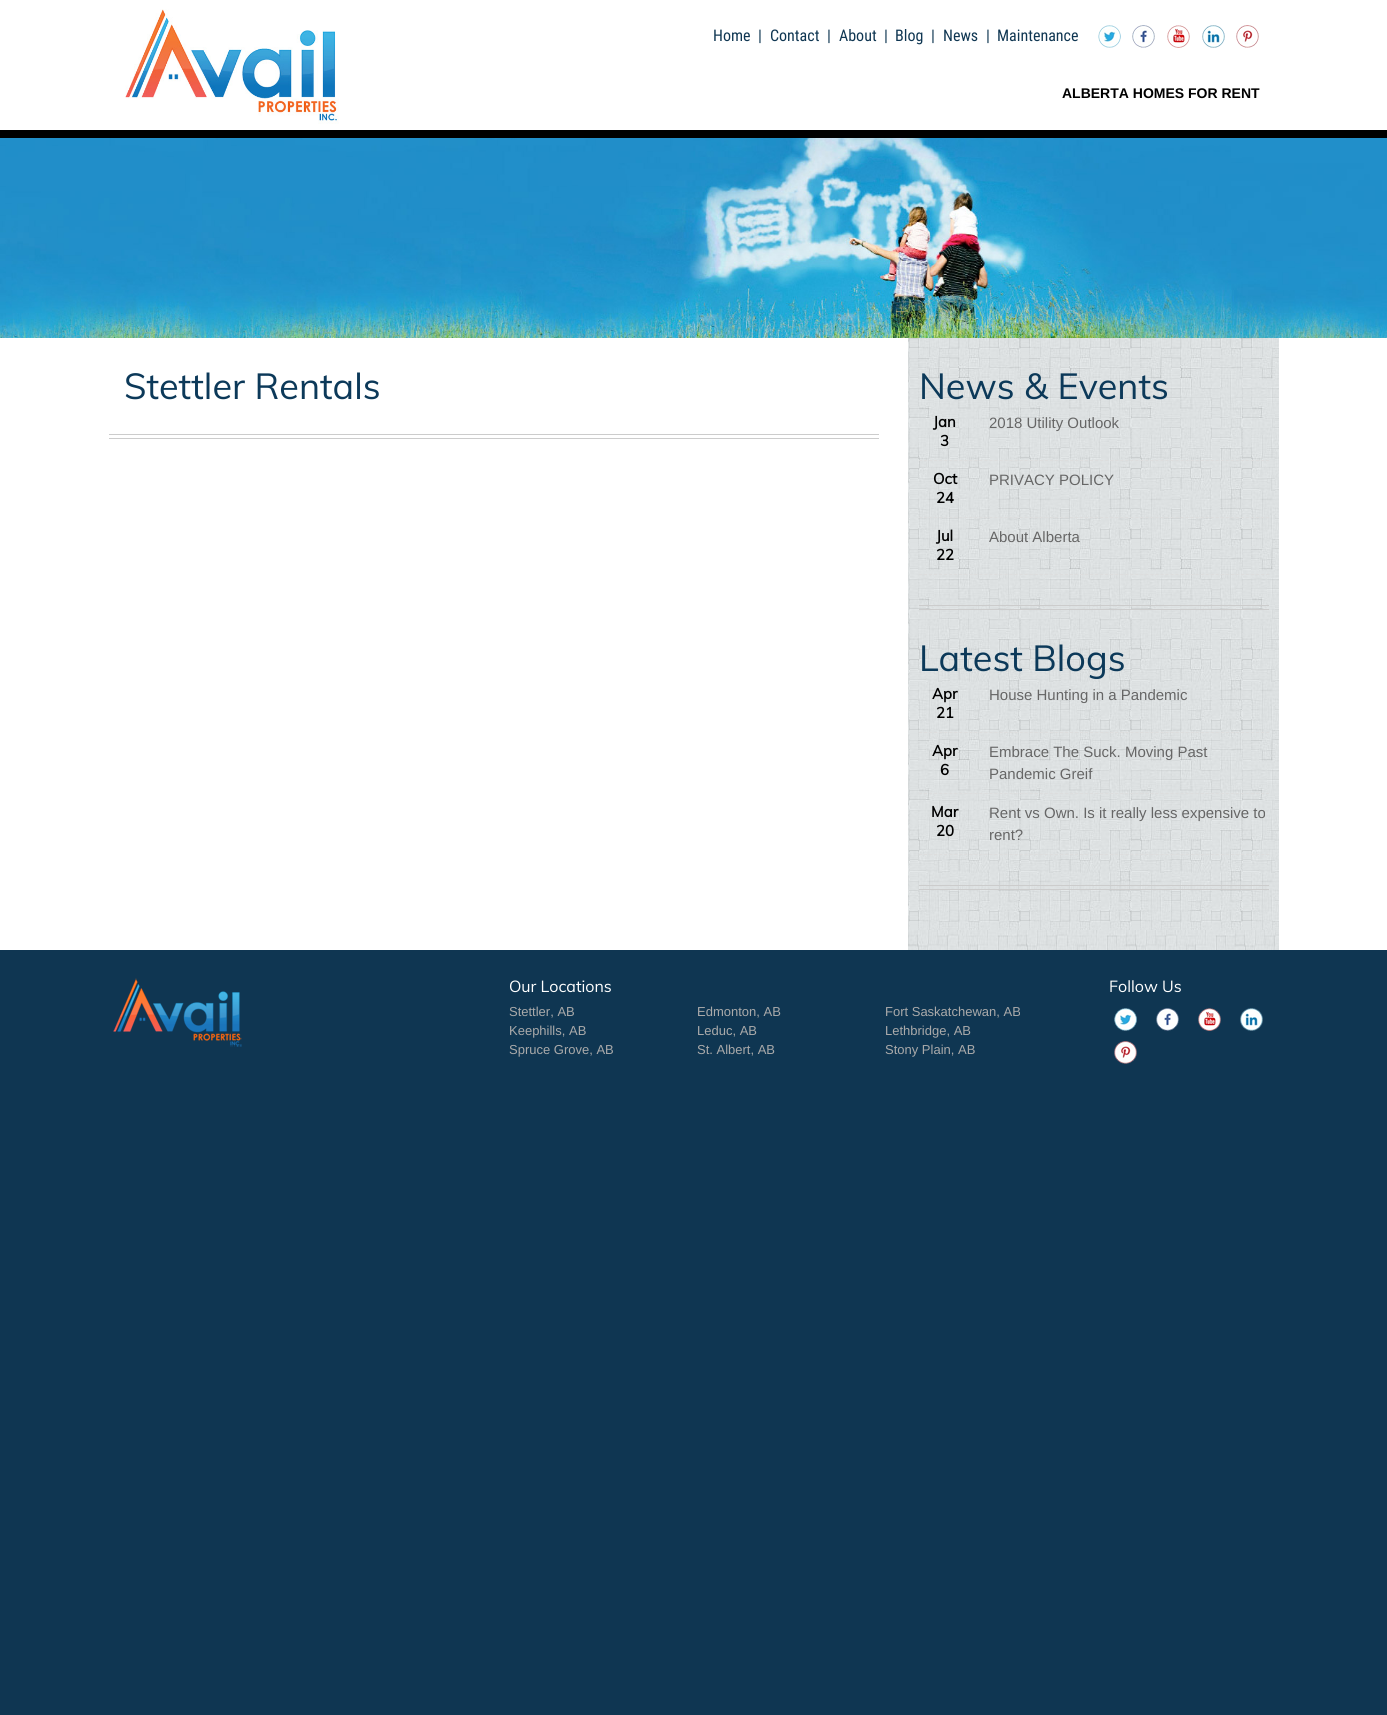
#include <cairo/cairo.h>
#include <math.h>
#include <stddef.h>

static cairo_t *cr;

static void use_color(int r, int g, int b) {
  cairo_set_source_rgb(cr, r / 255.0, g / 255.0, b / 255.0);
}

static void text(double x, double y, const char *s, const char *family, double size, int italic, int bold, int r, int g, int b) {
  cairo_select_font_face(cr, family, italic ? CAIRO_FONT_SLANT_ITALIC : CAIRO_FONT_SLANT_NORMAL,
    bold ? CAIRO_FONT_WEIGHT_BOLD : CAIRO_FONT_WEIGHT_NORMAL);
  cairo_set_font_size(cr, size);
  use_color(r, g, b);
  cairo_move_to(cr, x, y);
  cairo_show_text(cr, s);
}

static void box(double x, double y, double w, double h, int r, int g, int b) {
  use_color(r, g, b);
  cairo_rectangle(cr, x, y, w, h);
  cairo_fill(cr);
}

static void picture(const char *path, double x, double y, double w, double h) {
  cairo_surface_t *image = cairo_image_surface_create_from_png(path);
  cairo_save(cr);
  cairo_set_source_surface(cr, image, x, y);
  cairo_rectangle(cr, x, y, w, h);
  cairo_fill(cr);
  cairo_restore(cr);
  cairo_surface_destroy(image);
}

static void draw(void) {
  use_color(15, 54, 82);
  cairo_paint(cr);
  box(0, 0, 1387, 130, 255, 255, 255);
  box(0, 130, 1387, 8, 0, 0, 0);
  picture("img_01.png", 125, 9, 214, 115);
  picture("img_02.png", 1098, 25, 23, 23);
  picture("img_03.png", 1132, 25, 23, 23);
  picture("img_04.png", 1167, 25, 23, 23);
  picture("img_05.png", 1202, 25, 23, 23);
  picture("img_06.png", 1236, 25, 23, 23);
  box(0, 338, 1387, 612, 255, 255, 255);
  picture("img_07.png", 0, 138, 1387, 200);
  picture("img_08.png", 908, 338, 371, 612);
  box(109, 434, 770, 1, 204, 204, 204);
  box(109, 438, 770, 1, 204, 204, 204);
  picture("img_09.png", 909, 338, 370, 592);
  cairo_new_path(cr);
  cairo_move_to(cr, 919, 460.5);
  cairo_line_to(cr, 1269, 460.5);
  use_color(221, 221, 221);
  cairo_set_line_width(cr, 1);
  cairo_set_dash(cr, (double[]){3, 2.03}, 2, 0);
  cairo_stroke(cr);
  cairo_new_path(cr);
  cairo_move_to(cr, 919, 517.5);
  cairo_line_to(cr, 1269, 517.5);
  cairo_stroke(cr);
  cairo_new_path(cr);
  cairo_move_to(cr, 919, 574.5);
  cairo_line_to(cr, 1269, 574.5);
  cairo_stroke(cr);
  box(919, 605, 350, 1, 204, 204, 204);
  box(919, 609, 350, 1, 204, 204, 204);
  cairo_new_path(cr);
  cairo_move_to(cr, 919, 732.5);
  cairo_line_to(cr, 1269, 732.5);
  use_color(221, 221, 221);
  cairo_stroke(cr);
  cairo_new_path(cr);
  cairo_move_to(cr, 919, 793.5);
  cairo_line_to(cr, 1269, 793.5);
  cairo_stroke(cr);
  cairo_new_path(cr);
  cairo_move_to(cr, 919, 854.5);
  cairo_line_to(cr, 1269, 854.5);
  cairo_stroke(cr);
  box(919, 885, 350, 1, 204, 204, 204);
  box(919, 889, 350, 1, 204, 204, 204);
  picture("img_10.png", 113, 978, 129, 69);
  picture("img_11.png", 1114, 1008, 23, 23);
  picture("img_12.png", 1156, 1008, 23, 23);
  picture("img_13.png", 1198, 1008, 23, 23);
  picture("img_14.png", 1240, 1008, 23, 23);
  picture("img_15.png", 1114, 1041, 23, 23);
  text(713, 41, "Home", "Roboto Condensed", 16, 0, 0, 15, 54, 82);
  text(758, 41, "|", "Roboto Condensed", 16, 0, 0, 15, 54, 82);
  text(770, 41, "Contact", "Roboto Condensed", 16, 0, 0, 15, 54, 82);
  text(827, 41, "|", "Roboto Condensed", 16, 0, 0, 15, 54, 82);
  text(839, 41, "About", "Roboto Condensed", 16, 0, 0, 15, 54, 82);
  text(884, 41, "|", "Roboto Condensed", 16, 0, 0, 15, 54, 82);
  text(895, 41, "Blog", "Roboto Condensed", 16, 0, 0, 15, 54, 82);
  text(931, 41, "|", "Roboto Condensed", 16, 0, 0, 15, 54, 82);
  text(943, 41, "News", "Roboto Condensed", 16, 0, 0, 15, 54, 82);
  text(986, 41, "|", "Roboto Condensed", 16, 0, 0, 15, 54, 82);
  text(997, 41, "Maintenance", "Roboto Condensed", 16, 0, 0, 15, 54, 82);
  text(1062, 98, "ALBERTA HOMES FOR RENT", "Liberation Sans", 14, 0, 1, 0, 0, 0);
  text(124, 399, "Stettler Rentals", "Muli", 36, 0, 0, 12, 57, 89);
  text(919, 399, "News & Events", "Muli", 36, 0, 0, 12, 57, 89);
  text(933, 427, "Jan", "Muli", 15, 0, 1, 0, 0, 0);
  text(940, 446, "3", "Muli", 15, 0, 1, 0, 0, 0);
  text(989, 428, "2018 Utility Outlook", "Liberation Sans", 15, 0, 0, 102, 102, 102);
  text(933, 484, "Oct", "Muli", 15, 0, 1, 0, 0, 0);
  text(936, 503, "24", "Muli", 15, 0, 1, 0, 0, 0);
  text(989, 485, "PRIVACY POLICY", "Liberation Sans", 15, 0, 0, 102, 102, 102);
  text(936, 541, "Jul", "Muli", 15, 0, 1, 0, 0, 0);
  text(936, 560, "22", "Muli", 15, 0, 1, 0, 0, 0);
  text(989, 542, "About Alberta", "Liberation Sans", 15, 0, 0, 102, 102, 102);
  text(919, 671, "Latest Blogs", "Muli", 36, 0, 0, 12, 57, 89);
  text(932, 699, "Apr", "Muli", 15, 0, 1, 0, 0, 0);
  text(936, 718, "21", "Muli", 15, 0, 1, 0, 0, 0);
  text(989, 700, "House Hunting in a Pandemic", "Liberation Sans", 15, 0, 0, 102, 102, 102);
  text(932, 756, "Apr", "Muli", 15, 0, 1, 0, 0, 0);
  text(940, 775, "6", "Muli", 15, 0, 1, 0, 0, 0);
  text(989, 757, "Embrace The Suck. Moving Past", "Liberation Sans", 15, 0, 0, 102, 102, 102);
  text(989, 779, "Pandemic Greif", "Liberation Sans", 15, 0, 0, 102, 102, 102);
  text(931, 817, "Mar", "Muli", 15, 0, 1, 0, 0, 0);
  text(936, 836, "20", "Muli", 15, 0, 1, 0, 0, 0);
  text(989, 818, "Rent vs Own. Is it really less expensive to", "Liberation Sans", 15, 0, 0, 102, 102, 102);
  text(989, 840, "rent?", "Liberation Sans", 15, 0, 0, 102, 102, 102);
  text(509, 992, "Our Locations", "Muli", 16, 0, 0, 255, 255, 255);
  text(509, 1016, "Stettler, AB", "Liberation Sans", 13, 0, 0, 170, 170, 170);
  text(697, 1016, "Edmonton, AB", "Liberation Sans", 13, 0, 0, 170, 170, 170);
  text(885, 1016, "Fort Saskatchewan, AB", "Liberation Sans", 13, 0, 0, 170, 170, 170);
  text(509, 1035, "Keephills, AB", "Liberation Sans", 13, 0, 0, 170, 170, 170);
  text(697, 1035, "Leduc, AB", "Liberation Sans", 13, 0, 0, 170, 170, 170);
  text(885, 1035, "Lethbridge, AB", "Liberation Sans", 13, 0, 0, 170, 170, 170);
  text(509, 1054, "Spruce Grove, AB", "Liberation Sans", 13, 0, 0, 170, 170, 170);
  text(697, 1054, "St. Albert, AB", "Liberation Sans", 13, 0, 0, 170, 170, 170);
  text(885, 1054, "Stony Plain, AB", "Liberation Sans", 13, 0, 0, 170, 170, 170);
  text(1109, 992, "Follow Us", "Muli", 16, 0, 0, 255, 255, 255);
}

int main(void) {
  cairo_surface_t *surface = cairo_image_surface_create(CAIRO_FORMAT_RGB24, 1387, 1715);
  cr = cairo_create(surface);
  cairo_font_options_t *options = cairo_font_options_create();
  cairo_font_options_set_hint_metrics(options, CAIRO_HINT_METRICS_OFF);
  cairo_font_options_set_hint_style(options, CAIRO_HINT_STYLE_NONE);
  cairo_set_font_options(cr, options);
  cairo_set_miter_limit(cr, 4);
  draw();
  cairo_surface_write_to_png(surface, "out.png");
  cairo_font_options_destroy(options);
  cairo_destroy(cr);
  cairo_surface_destroy(surface);
  return 0;
}
